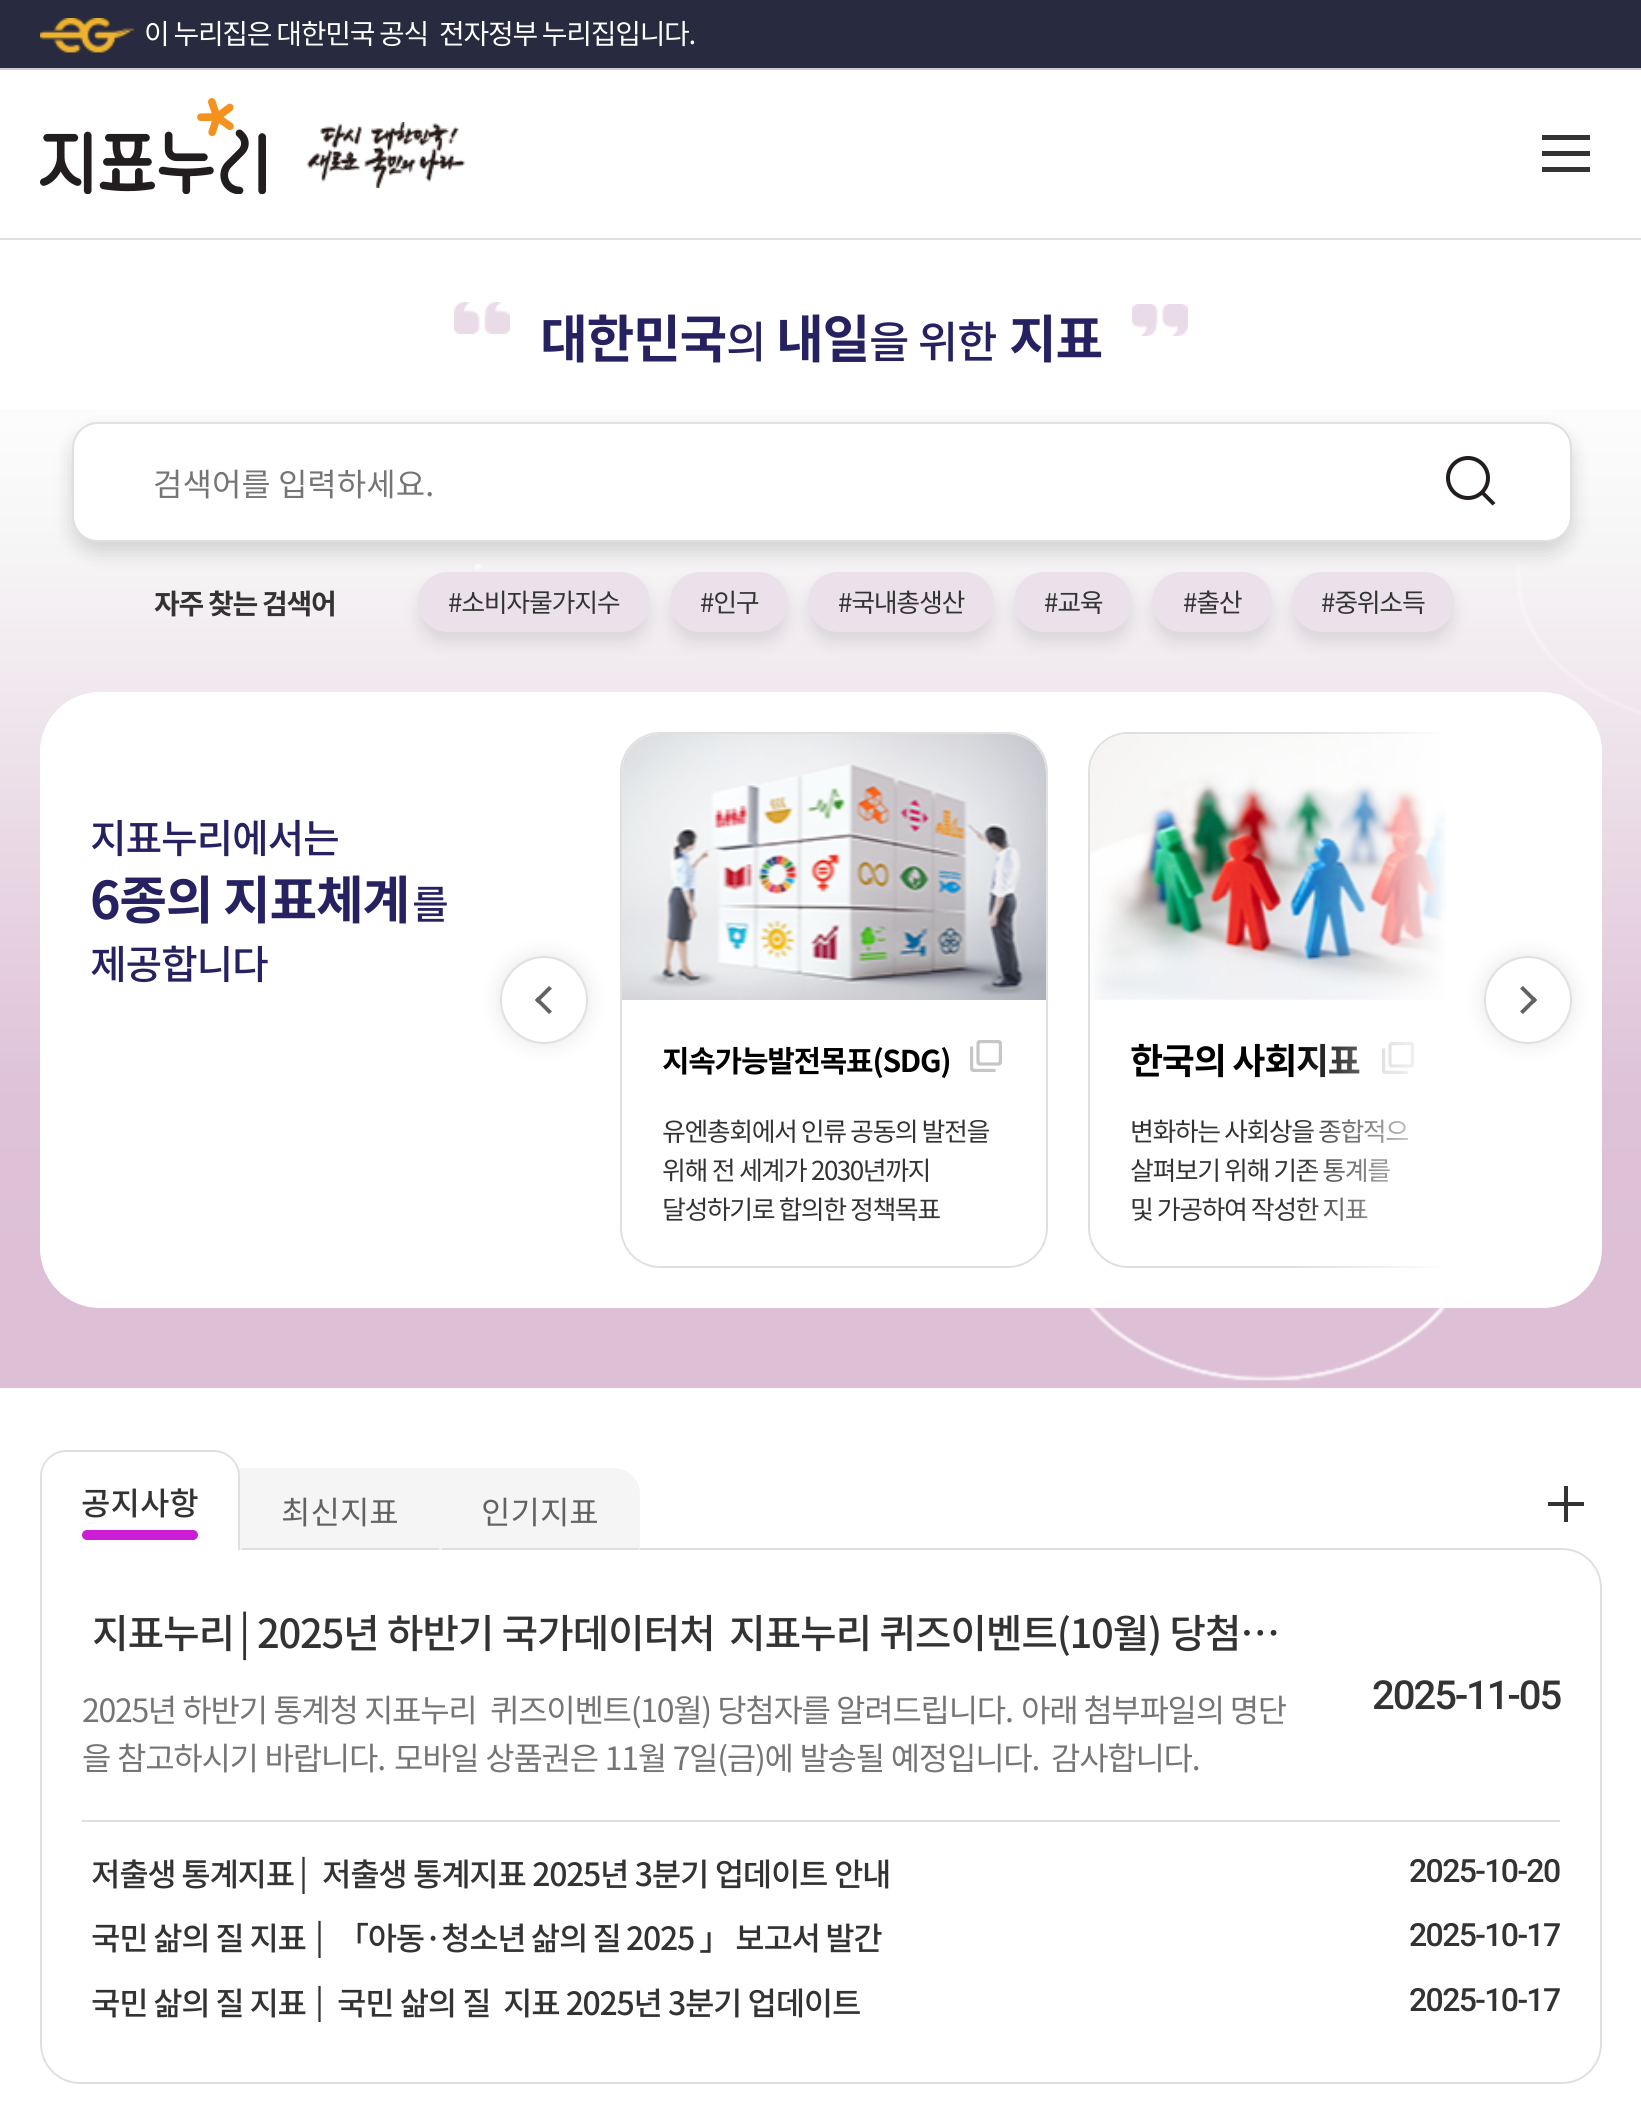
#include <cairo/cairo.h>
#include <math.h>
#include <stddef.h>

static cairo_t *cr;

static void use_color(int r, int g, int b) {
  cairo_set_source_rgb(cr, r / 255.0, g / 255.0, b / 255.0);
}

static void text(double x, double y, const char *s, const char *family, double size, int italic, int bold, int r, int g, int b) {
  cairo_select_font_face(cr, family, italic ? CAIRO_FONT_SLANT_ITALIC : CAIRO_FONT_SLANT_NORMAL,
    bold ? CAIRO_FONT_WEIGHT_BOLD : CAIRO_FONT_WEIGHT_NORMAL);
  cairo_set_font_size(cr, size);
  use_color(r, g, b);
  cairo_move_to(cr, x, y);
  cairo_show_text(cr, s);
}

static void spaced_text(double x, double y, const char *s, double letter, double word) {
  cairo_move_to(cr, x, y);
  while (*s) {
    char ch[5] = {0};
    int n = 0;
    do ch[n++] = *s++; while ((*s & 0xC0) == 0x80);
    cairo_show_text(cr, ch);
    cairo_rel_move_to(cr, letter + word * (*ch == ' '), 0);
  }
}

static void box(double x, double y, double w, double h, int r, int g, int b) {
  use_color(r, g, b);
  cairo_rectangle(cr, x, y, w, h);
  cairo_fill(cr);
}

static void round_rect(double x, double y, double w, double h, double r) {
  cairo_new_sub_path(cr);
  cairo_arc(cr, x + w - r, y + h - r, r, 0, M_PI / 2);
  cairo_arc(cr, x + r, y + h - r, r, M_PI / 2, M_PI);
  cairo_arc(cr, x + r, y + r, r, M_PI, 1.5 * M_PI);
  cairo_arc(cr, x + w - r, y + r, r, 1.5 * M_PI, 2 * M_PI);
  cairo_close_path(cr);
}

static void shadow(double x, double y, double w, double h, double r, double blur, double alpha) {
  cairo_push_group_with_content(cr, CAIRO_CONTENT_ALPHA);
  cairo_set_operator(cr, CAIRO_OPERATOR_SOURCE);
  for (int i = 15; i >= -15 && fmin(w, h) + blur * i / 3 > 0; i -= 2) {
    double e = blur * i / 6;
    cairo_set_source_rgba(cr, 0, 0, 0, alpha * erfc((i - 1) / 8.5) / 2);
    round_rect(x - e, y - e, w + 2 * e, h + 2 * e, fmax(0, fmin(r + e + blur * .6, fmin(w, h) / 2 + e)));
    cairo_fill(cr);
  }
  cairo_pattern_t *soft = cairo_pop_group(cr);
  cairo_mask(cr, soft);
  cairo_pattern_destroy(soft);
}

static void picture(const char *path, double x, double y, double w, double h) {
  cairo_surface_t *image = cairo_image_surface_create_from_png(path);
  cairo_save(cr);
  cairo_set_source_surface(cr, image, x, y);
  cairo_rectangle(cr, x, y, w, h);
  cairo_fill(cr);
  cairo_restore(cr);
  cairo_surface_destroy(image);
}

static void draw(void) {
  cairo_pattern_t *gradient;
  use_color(255, 255, 255);
  cairo_paint(cr);
  box(0, 238, 1641, 2, 224, 224, 224);
  box(0, 0, 1641, 68, 40, 43, 63);
  box(0, 68, 1641, 2, 204, 204, 204);
  picture("img_01.png", 40, 18, 94, 35);
  picture("img_02.png", 40, 98, 226, 96);
  picture("img_03.png", 306, 122, 160, 66);
  use_color(51, 51, 51);
  cairo_new_path(cr);
  cairo_move_to(cr, 1542, 172);
  cairo_line_to(cr, 1590, 172);
  cairo_line_to(cr, 1590, 167);
  cairo_line_to(cr, 1542, 167);
  cairo_close_path(cr);
  cairo_move_to(cr, 1542, 156);
  cairo_line_to(cr, 1590, 156);
  cairo_line_to(cr, 1590, 151);
  cairo_line_to(cr, 1542, 151);
  cairo_close_path(cr);
  cairo_move_to(cr, 1542, 135);
  cairo_line_to(cr, 1542, 140);
  cairo_line_to(cr, 1590, 140);
  cairo_line_to(cr, 1590, 135);
  cairo_close_path(cr);
  cairo_fill(cr);
  gradient = cairo_pattern_create_linear(821, 1388, 821, 240);
  cairo_pattern_add_color_stop_rgba(gradient, 0.1, 0.867, 0.753, 0.839, 1);
  cairo_pattern_add_color_stop_rgba(gradient, 0.25, 0.871, 0.761, 0.847, 1);
  cairo_pattern_add_color_stop_rgba(gradient, 0.4, 0.902, 0.82, 0.878, 1);
  cairo_pattern_add_color_stop_rgba(gradient, 0.75, 0.969, 0.969, 0.969, 1);
  cairo_pattern_add_color_stop_rgba(gradient, 0.9, 1, 1, 1, 1);
  cairo_set_source(cr, gradient);
  cairo_pattern_destroy(gradient);
  cairo_rectangle(cr, 0, 409, 1641, 979);
  cairo_fill(cr);
  picture("img_04.png", 454, 302, 56, 32);
  picture("img_05.png", 1132, 304, 56, 32);
  picture("img_09.png", 472, 564, 1169, 817);
  use_color(0, 0, 0);
  shadow(72, 432, 1500, 120, 26, 10, 0.15);
  use_color(255, 255, 255);
  round_rect(73, 423, 1498, 118, 25);
  cairo_fill_preserve(cr);
  use_color(224, 224, 224);
  cairo_stroke(cr);
  cairo_arc(cr, 1468, 478, 20, 0, 2 * M_PI);
  use_color(34, 30, 31);
  cairo_set_line_width(cr, 4);
  cairo_stroke(cr);
  cairo_new_path(cr);
  cairo_move_to(cr, 1484, 491.5);
  cairo_line_to(cr, 1495.5, 503);
  cairo_line_to(cr, 1492.5, 505.5);
  cairo_line_to(cr, 1481.5, 494.5);
  cairo_close_path(cr);
  cairo_fill(cr);
  use_color(0, 0, 0);
  shadow(418, 582, 232, 60, 30, 8, 0.1);
  use_color(234, 225, 234);
  round_rect(418, 572, 232, 60, 30);
  cairo_fill(cr);
  use_color(0, 0, 0);
  shadow(670, 582, 118, 60, 30, 8, 0.1);
  use_color(234, 225, 234);
  round_rect(670, 572, 118, 60, 30);
  cairo_fill(cr);
  use_color(0, 0, 0);
  shadow(808, 582, 186, 60, 30, 8, 0.1);
  use_color(234, 225, 234);
  round_rect(808, 572, 186, 60, 30);
  cairo_fill(cr);
  use_color(0, 0, 0);
  shadow(1014, 582, 118, 60, 30, 8, 0.1);
  use_color(234, 225, 234);
  round_rect(1014, 572, 118, 60, 30);
  cairo_fill(cr);
  use_color(0, 0, 0);
  shadow(1152, 582, 120, 60, 30, 8, 0.1);
  use_color(234, 225, 234);
  round_rect(1152, 572, 120, 60, 30);
  cairo_fill(cr);
  use_color(0, 0, 0);
  shadow(1292, 582, 162, 60, 30, 8, 0.1);
  use_color(234, 225, 234);
  round_rect(1292, 572, 162, 60, 30);
  cairo_fill(cr);
  use_color(255, 255, 255);
  round_rect(40, 692, 1562, 616, 60);
  cairo_fill(cr);
  use_color(0, 0, 0);
  shadow(500, 956, 88, 88, 44, 10, 0.1);
  use_color(255, 255, 255);
  cairo_arc(cr, 544, 1000, 43, 0, 2 * M_PI);
  cairo_fill_preserve(cr);
  use_color(224, 224, 224);
  cairo_set_line_width(cr, 2);
  cairo_stroke(cr);
  use_color(98, 98, 98);
  cairo_new_path(cr);
  cairo_move_to(cr, 549, 1014);
  cairo_line_to(cr, 535, 1000);
  cairo_line_to(cr, 537.5, 997);
  cairo_line_to(cr, 552, 1011.5);
  cairo_close_path(cr);
  cairo_fill(cr);
  cairo_new_path(cr);
  cairo_move_to(cr, 537.5, 1003);
  cairo_line_to(cr, 535, 1000);
  cairo_line_to(cr, 549, 986);
  cairo_line_to(cr, 552, 988.5);
  cairo_close_path(cr);
  cairo_fill(cr);
  cairo_save(cr);
  cairo_rectangle(cr, 620, 732, 832, 536);
  cairo_clip(cr);
  round_rect(1089, 733, 426, 534, 39);
  use_color(224, 224, 224);
  cairo_stroke(cr);
  cairo_restore(cr);
  use_color(0, 0, 0);
  shadow(1484, 956, 88, 88, 44, 10, 0.1);
  use_color(255, 255, 255);
  cairo_arc(cr, 1528, 1000, 43, 0, 2 * M_PI);
  cairo_fill_preserve(cr);
  use_color(224, 224, 224);
  cairo_stroke(cr);
  use_color(98, 98, 98);
  cairo_new_path(cr);
  cairo_move_to(cr, 1523, 986);
  cairo_line_to(cr, 1537, 1000);
  cairo_line_to(cr, 1534.5, 1003);
  cairo_line_to(cr, 1520, 988.5);
  cairo_close_path(cr);
  cairo_fill(cr);
  cairo_new_path(cr);
  cairo_move_to(cr, 1534.5, 997);
  cairo_line_to(cr, 1537, 1000);
  cairo_line_to(cr, 1523, 1014);
  cairo_line_to(cr, 1520, 1011.5);
  cairo_close_path(cr);
  cairo_fill(cr);
  round_rect(621, 733, 426, 534, 39);
  use_color(224, 224, 224);
  cairo_stroke(cr);
  picture("img_06.png", 622, 734, 424, 266);
  picture("img_07.png", 970, 1040, 32, 32);
  picture("img_08.png", 1090, 734, 357, 266);
  picture("img_07.png", 1382, 1042, 32, 32);
  use_color(245, 245, 245);
  cairo_new_path(cr);
  cairo_move_to(cr, 66, 1468);
  cairo_line_to(cr, 614, 1468);
  cairo_curve_to(cr, 628.5, 1468, 640, 1479.5, 640, 1494);
  cairo_line_to(cr, 640, 1548);
  cairo_line_to(cr, 40, 1548);
  cairo_line_to(cr, 40, 1494);
  cairo_curve_to(cr, 40, 1479.5, 51.5, 1468, 66, 1468);
  cairo_close_path(cr);
  cairo_fill(cr);
  cairo_new_path(cr);
  cairo_move_to(cr, 41, 1549);
  cairo_line_to(cr, 1562, 1549);
  cairo_curve_to(cr, 1583.5, 1549, 1601, 1566.5, 1601, 1588);
  cairo_line_to(cr, 1601, 2044);
  cairo_curve_to(cr, 1601, 2065.5, 1583.5, 2083, 1562, 2083);
  cairo_line_to(cr, 80, 2083);
  cairo_curve_to(cr, 58.5, 2083, 41, 2065.5, 41, 2044);
  cairo_close_path(cr);
  use_color(224, 224, 224);
  cairo_stroke(cr);
  use_color(255, 255, 255);
  cairo_new_path(cr);
  cairo_move_to(cr, 66, 1450);
  cairo_line_to(cr, 214, 1450);
  cairo_curve_to(cr, 228.5, 1450, 240, 1461.5, 240, 1476);
  cairo_line_to(cr, 240, 1550);
  cairo_line_to(cr, 40, 1550);
  cairo_line_to(cr, 40, 1476);
  cairo_curve_to(cr, 40, 1461.5, 51.5, 1450, 66, 1450);
  cairo_close_path(cr);
  cairo_fill(cr);
  use_color(224, 224, 224);
  cairo_set_fill_rule(cr, CAIRO_FILL_RULE_EVEN_ODD);
  cairo_new_path(cr);
  cairo_move_to(cr, 66, 1450);
  cairo_line_to(cr, 214, 1450);
  cairo_curve_to(cr, 228, 1450, 240, 1462, 240, 1476);
  cairo_line_to(cr, 240, 1550);
  cairo_line_to(cr, 40, 1550);
  cairo_line_to(cr, 40, 1476);
  cairo_curve_to(cr, 40, 1462, 52, 1450, 66, 1450);
  cairo_close_path(cr);
  cairo_move_to(cr, 66, 1452);
  cairo_line_to(cr, 214, 1452);
  cairo_curve_to(cr, 227, 1452, 238, 1463, 238, 1476);
  cairo_line_to(cr, 238, 1550);
  cairo_line_to(cr, 42, 1550);
  cairo_line_to(cr, 42, 1476);
  cairo_curve_to(cr, 42, 1463, 53, 1452, 66, 1452);
  cairo_close_path(cr);
  cairo_fill(cr);
  use_color(203, 29, 212);
  round_rect(82, 1530, 116, 10, 5);
  cairo_fill(cr);
  box(1548, 1502, 36, 4, 51, 51, 51);
  box(1564, 1486, 4, 36, 51, 51, 51);
  box(82, 1820, 1478, 2, 224, 224, 224);
  use_color(245, 245, 245);
  cairo_new_path(cr);
  cairo_move_to(cr, 266, 1470);
  cairo_line_to(cr, 414, 1470);
  cairo_curve_to(cr, 428.5, 1470, 440, 1481.5, 440, 1496);
  cairo_line_to(cr, 440, 1550);
  cairo_line_to(cr, 240, 1550);
  cairo_line_to(cr, 240, 1496);
  cairo_curve_to(cr, 240, 1481.5, 251.5, 1470, 266, 1470);
  cairo_close_path(cr);
  cairo_fill(cr);
  use_color(224, 224, 224);
  cairo_set_fill_rule(cr, CAIRO_FILL_RULE_WINDING);
  cairo_new_path(cr);
  cairo_move_to(cr, 440, 1550);
  cairo_line_to(cr, 438, 1548);
  cairo_line_to(cr, 242, 1548);
  cairo_line_to(cr, 240, 1550);
  cairo_close_path(cr);
  cairo_fill(cr);
  use_color(245, 245, 245);
  cairo_new_path(cr);
  cairo_move_to(cr, 240, 1550);
  cairo_line_to(cr, 242, 1548);
  cairo_line_to(cr, 242, 1496);
  cairo_curve_to(cr, 242, 1490, 245, 1484, 249, 1479);
  cairo_line_to(cr, 248, 1478);
  cairo_curve_to(cr, 243, 1482, 240, 1489, 240, 1496);
  cairo_close_path(cr);
  cairo_fill(cr);
  cairo_new_path(cr);
  cairo_move_to(cr, 466, 1470);
  cairo_line_to(cr, 614, 1470);
  cairo_curve_to(cr, 628.5, 1470, 640, 1481.5, 640, 1496);
  cairo_line_to(cr, 640, 1550);
  cairo_line_to(cr, 440, 1550);
  cairo_line_to(cr, 440, 1496);
  cairo_curve_to(cr, 440, 1481.5, 451.5, 1470, 466, 1470);
  cairo_close_path(cr);
  cairo_fill(cr);
  use_color(224, 224, 224);
  cairo_new_path(cr);
  cairo_move_to(cr, 640, 1550);
  cairo_line_to(cr, 638, 1548);
  cairo_line_to(cr, 442, 1548);
  cairo_line_to(cr, 440, 1550);
  cairo_close_path(cr);
  cairo_fill(cr);
  use_color(245, 245, 245);
  cairo_new_path(cr);
  cairo_move_to(cr, 440, 1550);
  cairo_line_to(cr, 442, 1548);
  cairo_line_to(cr, 442, 1496);
  cairo_curve_to(cr, 442, 1490, 445, 1484, 449, 1479);
  cairo_line_to(cr, 448, 1478);
  cairo_curve_to(cr, 443, 1482, 440, 1489, 440, 1496);
  cairo_close_path(cr);
  cairo_fill(cr);
  cairo_select_font_face(cr, "Noto Sans KR", CAIRO_FONT_SLANT_NORMAL, CAIRO_FONT_WEIGHT_NORMAL);
  cairo_set_font_size(cr, 28);
  use_color(255, 255, 255);
  spaced_text(144, 44, "이 누리집은 대한민국 공식", -1.3, 0);
  spaced_text(439, 44, "전자정부 누리집입니다.", -1.3, 0);
  cairo_select_font_face(cr, "Noto Sans KR", CAIRO_FONT_SLANT_NORMAL, CAIRO_FONT_WEIGHT_BOLD);
  cairo_set_font_size(cr, 52);
  use_color(38, 34, 98);
  spaced_text(540, 358, "대한민국", -1.3, 0);
  cairo_select_font_face(cr, "Noto Sans KR Medium", CAIRO_FONT_SLANT_NORMAL, CAIRO_FONT_WEIGHT_NORMAL);
  cairo_set_font_size(cr, 44);
  spaced_text(726, 358, "의", -1.3, 0);
  cairo_select_font_face(cr, "Noto Sans KR", CAIRO_FONT_SLANT_NORMAL, CAIRO_FONT_WEIGHT_BOLD);
  cairo_set_font_size(cr, 52);
  spaced_text(776, 358, "내일", -1.3, 0);
  cairo_select_font_face(cr, "Noto Sans KR Medium", CAIRO_FONT_SLANT_NORMAL, CAIRO_FONT_WEIGHT_NORMAL);
  cairo_set_font_size(cr, 44);
  spaced_text(869, 358, "을 위한", -1.3, 1);
  cairo_select_font_face(cr, "Noto Sans KR", CAIRO_FONT_SLANT_NORMAL, CAIRO_FONT_WEIGHT_BOLD);
  cairo_set_font_size(cr, 52);
  spaced_text(1009, 358, "지표", -1.3, 0);
  text(153, 496, "검색어를 입력하세요.", "Noto Sans KR", 32, 0, 0, 117, 117, 117);
  cairo_select_font_face(cr, "Noto Sans KR", CAIRO_FONT_SLANT_NORMAL, CAIRO_FONT_WEIGHT_BOLD);
  cairo_set_font_size(cr, 28);
  use_color(51, 51, 51);
  spaced_text(154, 614, "자주 찾는 검색어", -1.3, 0);
  cairo_select_font_face(cr, "Noto Sans KR", CAIRO_FONT_SLANT_NORMAL, CAIRO_FONT_WEIGHT_NORMAL);
  cairo_set_font_size(cr, 26);
  spaced_text(448, 612, "#소비자물가지수", -1.3, 0);
  spaced_text(700, 612, "#인구", -1.3, 0);
  spaced_text(838, 612, "#국내총생산", -1.3, 0);
  spaced_text(1044, 612, "#교육", -1.3, 0);
  spaced_text(1183, 612, "#출산", -1.3, 0);
  spaced_text(1321, 612, "#중위소득", -1.3, 0);
  cairo_select_font_face(cr, "Noto Sans KR Medium", CAIRO_FONT_SLANT_NORMAL, CAIRO_FONT_WEIGHT_NORMAL);
  cairo_set_font_size(cr, 40);
  use_color(38, 34, 98);
  spaced_text(90, 853, "지표누리에서는", -1.3, 0);
  cairo_select_font_face(cr, "Noto Sans KR", CAIRO_FONT_SLANT_NORMAL, CAIRO_FONT_WEIGHT_BOLD);
  cairo_set_font_size(cr, 52);
  spaced_text(90, 919, "6종의 지표체계", -1.3, 0);
  cairo_select_font_face(cr, "Noto Sans KR Medium", CAIRO_FONT_SLANT_NORMAL, CAIRO_FONT_WEIGHT_NORMAL);
  cairo_set_font_size(cr, 40);
  spaced_text(412, 919, "를", -1.3, 0);
  spaced_text(90, 979, "제공합니다", -1.3, 0);
  cairo_select_font_face(cr, "Noto Sans KR", CAIRO_FONT_SLANT_NORMAL, CAIRO_FONT_WEIGHT_BOLD);
  cairo_set_font_size(cr, 30);
  use_color(0, 0, 0);
  spaced_text(662, 1072, "지속가능발전목표(SDG)", -1.3, 0);
  cairo_select_font_face(cr, "Noto Sans KR", CAIRO_FONT_SLANT_NORMAL, CAIRO_FONT_WEIGHT_NORMAL);
  cairo_set_font_size(cr, 26);
  use_color(51, 51, 51);
  spaced_text(662, 1141, "유엔총회에서 인류 공동의 발전을", -1.5, 0);
  spaced_text(662, 1180, "위해 전 세계가 2030년까지", -1.5, 0.5);
  spaced_text(662, 1219, "달성하기로 합의한 정책목표", -1.5, 0);
  cairo_select_font_face(cr, "Noto Sans KR", CAIRO_FONT_SLANT_NORMAL, CAIRO_FONT_WEIGHT_BOLD);
  cairo_set_font_size(cr, 36);
  use_color(0, 0, 0);
  spaced_text(1130, 1074, "한국의 사회지표", -1.3, 0);
  cairo_select_font_face(cr, "Noto Sans KR", CAIRO_FONT_SLANT_NORMAL, CAIRO_FONT_WEIGHT_NORMAL);
  cairo_set_font_size(cr, 26);
  use_color(51, 51, 51);
  spaced_text(1130, 1141, "변화하는 사회상을 종합적으", -1.5, 0);
  spaced_text(1130, 1180, "살펴보기 위해 기존 통계를", -1.5, 0);
  spaced_text(1130, 1219, "및 가공하여 작성한 지표", -1.5, 0);
  gradient = cairo_pattern_create_linear(1296, 1000, 1456, 1000);
  cairo_pattern_add_color_stop_rgba(gradient, 0, 1, 1, 1, 0);
  cairo_pattern_add_color_stop_rgba(gradient, 0.55, 1, 1, 1, 0.5);
  cairo_pattern_add_color_stop_rgba(gradient, 0.95, 1, 1, 1, 1);
  cairo_set_source(cr, gradient);
  cairo_pattern_destroy(gradient);
  cairo_rectangle(cr, 1300, 732, 152, 536);
  cairo_fill(cr);
  text(81, 1515, "공지사항", "Noto Sans KR Medium", 32, 0, 0, 51, 51, 51);
  cairo_set_font_size(cr, 40);
  spaced_text(92, 1648, "지표누리", -1.3, 0);
  cairo_select_font_face(cr, "Liberation Sans", CAIRO_FONT_SLANT_NORMAL, CAIRO_FONT_WEIGHT_NORMAL);
  spaced_text(234, 1648, "│", -1.3, 0);
  cairo_select_font_face(cr, "Noto Sans KR Medium", CAIRO_FONT_SLANT_NORMAL, CAIRO_FONT_WEIGHT_NORMAL);
  spaced_text(257, 1648, "2025년 하반기 국가데이터처", -1.3, 0.5);
  spaced_text(729, 1648, "지표누리 퀴즈이벤트(10월) 당첨…", -1.3, 0.5);
  cairo_select_font_face(cr, "Noto Sans KR", CAIRO_FONT_SLANT_NORMAL, CAIRO_FONT_WEIGHT_NORMAL);
  cairo_set_font_size(cr, 32);
  use_color(117, 117, 117);
  spaced_text(82, 1722, "2025년 하반기 통계청 지표누리", -1.3, 0.5);
  spaced_text(490, 1722, "퀴즈이벤트(10월) 당첨자를 알려드립니다.", -1.3, 0.5);
  spaced_text(1021, 1722, "아래 첨부파일의 명단", -1.3, 0);
  spaced_text(82, 1770, "을 참고하시기 바랍니다.", -1.3, 1);
  spaced_text(394, 1770, "모바일 상품권은 11월 7일(금)에 발송될 예정입니다.", -1.3, 1);
  spaced_text(1051, 1770, "감사합니다.", -1.3, 0);
  cairo_select_font_face(cr, "Roboto Medium", CAIRO_FONT_SLANT_NORMAL, CAIRO_FONT_WEIGHT_NORMAL);
  cairo_set_font_size(cr, 40);
  use_color(51, 51, 51);
  spaced_text(1372, 1709, "2025-11-05", -2, 0);
  cairo_select_font_face(cr, "Noto Sans KR Medium", CAIRO_FONT_SLANT_NORMAL, CAIRO_FONT_WEIGHT_NORMAL);
  cairo_set_font_size(cr, 32);
  spaced_text(91, 1886, "저출생 통계지표", -1.3, 0);
  cairo_save(cr);
  cairo_rectangle(cr, 82, 1850, 1218, 44);
  cairo_clip(cr);
  cairo_select_font_face(cr, "Liberation Sans", CAIRO_FONT_SLANT_NORMAL, CAIRO_FONT_WEIGHT_NORMAL);
  spaced_text(295, 1886, "│", -1.3, 0);
  cairo_restore(cr);
  spaced_text(322, 1886, "저출생 통계지표 2025년 3분기 업데이트 안내", -1.3, 0.75);
  cairo_select_font_face(cr, "Roboto Medium", CAIRO_FONT_SLANT_NORMAL, CAIRO_FONT_WEIGHT_NORMAL);
  spaced_text(1409, 1882, "2025-10-20", -1.6, 0);
  cairo_select_font_face(cr, "Noto Sans KR Medium", CAIRO_FONT_SLANT_NORMAL, CAIRO_FONT_WEIGHT_NORMAL);
  spaced_text(91, 1950, "국민 삶의 질 지표", -1.3, 0);
  cairo_save(cr);
  cairo_rectangle(cr, 82, 1914, 1218, 44);
  cairo_clip(cr);
  cairo_select_font_face(cr, "Liberation Sans", CAIRO_FONT_SLANT_NORMAL, CAIRO_FONT_WEIGHT_NORMAL);
  spaced_text(311, 1950, "│", -1.3, 0);
  cairo_restore(cr);
  spaced_text(337, 1950, "「아동·청소년 삶의 질 2025 」 보고서 발간", -1.3, -0.5);
  cairo_select_font_face(cr, "Roboto Medium", CAIRO_FONT_SLANT_NORMAL, CAIRO_FONT_WEIGHT_NORMAL);
  spaced_text(1409, 1946, "2025-10-17", -1.6, 0);
  cairo_select_font_face(cr, "Noto Sans KR Medium", CAIRO_FONT_SLANT_NORMAL, CAIRO_FONT_WEIGHT_NORMAL);
  spaced_text(91, 2015, "국민 삶의 질 지표", -1.3, 0);
  cairo_save(cr);
  cairo_rectangle(cr, 82, 1978, 1218, 44);
  cairo_clip(cr);
  cairo_select_font_face(cr, "Liberation Sans", CAIRO_FONT_SLANT_NORMAL, CAIRO_FONT_WEIGHT_NORMAL);
  spaced_text(311, 2015, "│", -1.3, 0);
  cairo_restore(cr);
  spaced_text(337, 2015, "국민 삶의 질", -1.3, 0.5);
  spaced_text(503, 2015, "지표 2025년 3분기 업데이트", -1.3, 0.5);
  cairo_select_font_face(cr, "Roboto Medium", CAIRO_FONT_SLANT_NORMAL, CAIRO_FONT_WEIGHT_NORMAL);
  spaced_text(1409, 2011, "2025-10-17", -1.6, 0);
  text(281, 1524, "최신지표", "Noto Sans KR", 32, 0, 0, 98, 98, 98);
  text(481, 1524, "인기지표", "Noto Sans KR", 32, 0, 0, 98, 98, 98);
}

int main(void) {
  cairo_surface_t *surface = cairo_image_surface_create(CAIRO_FORMAT_RGB24, 1641, 2126);
  cr = cairo_create(surface);
  cairo_font_options_t *options = cairo_font_options_create();
  cairo_font_options_set_hint_metrics(options, CAIRO_HINT_METRICS_OFF);
  cairo_font_options_set_hint_style(options, CAIRO_HINT_STYLE_NONE);
  cairo_set_font_options(cr, options);
  cairo_set_miter_limit(cr, 4);
  draw();
  cairo_surface_write_to_png(surface, "out.png");
  cairo_font_options_destroy(options);
  cairo_destroy(cr);
  cairo_surface_destroy(surface);
  return 0;
}
